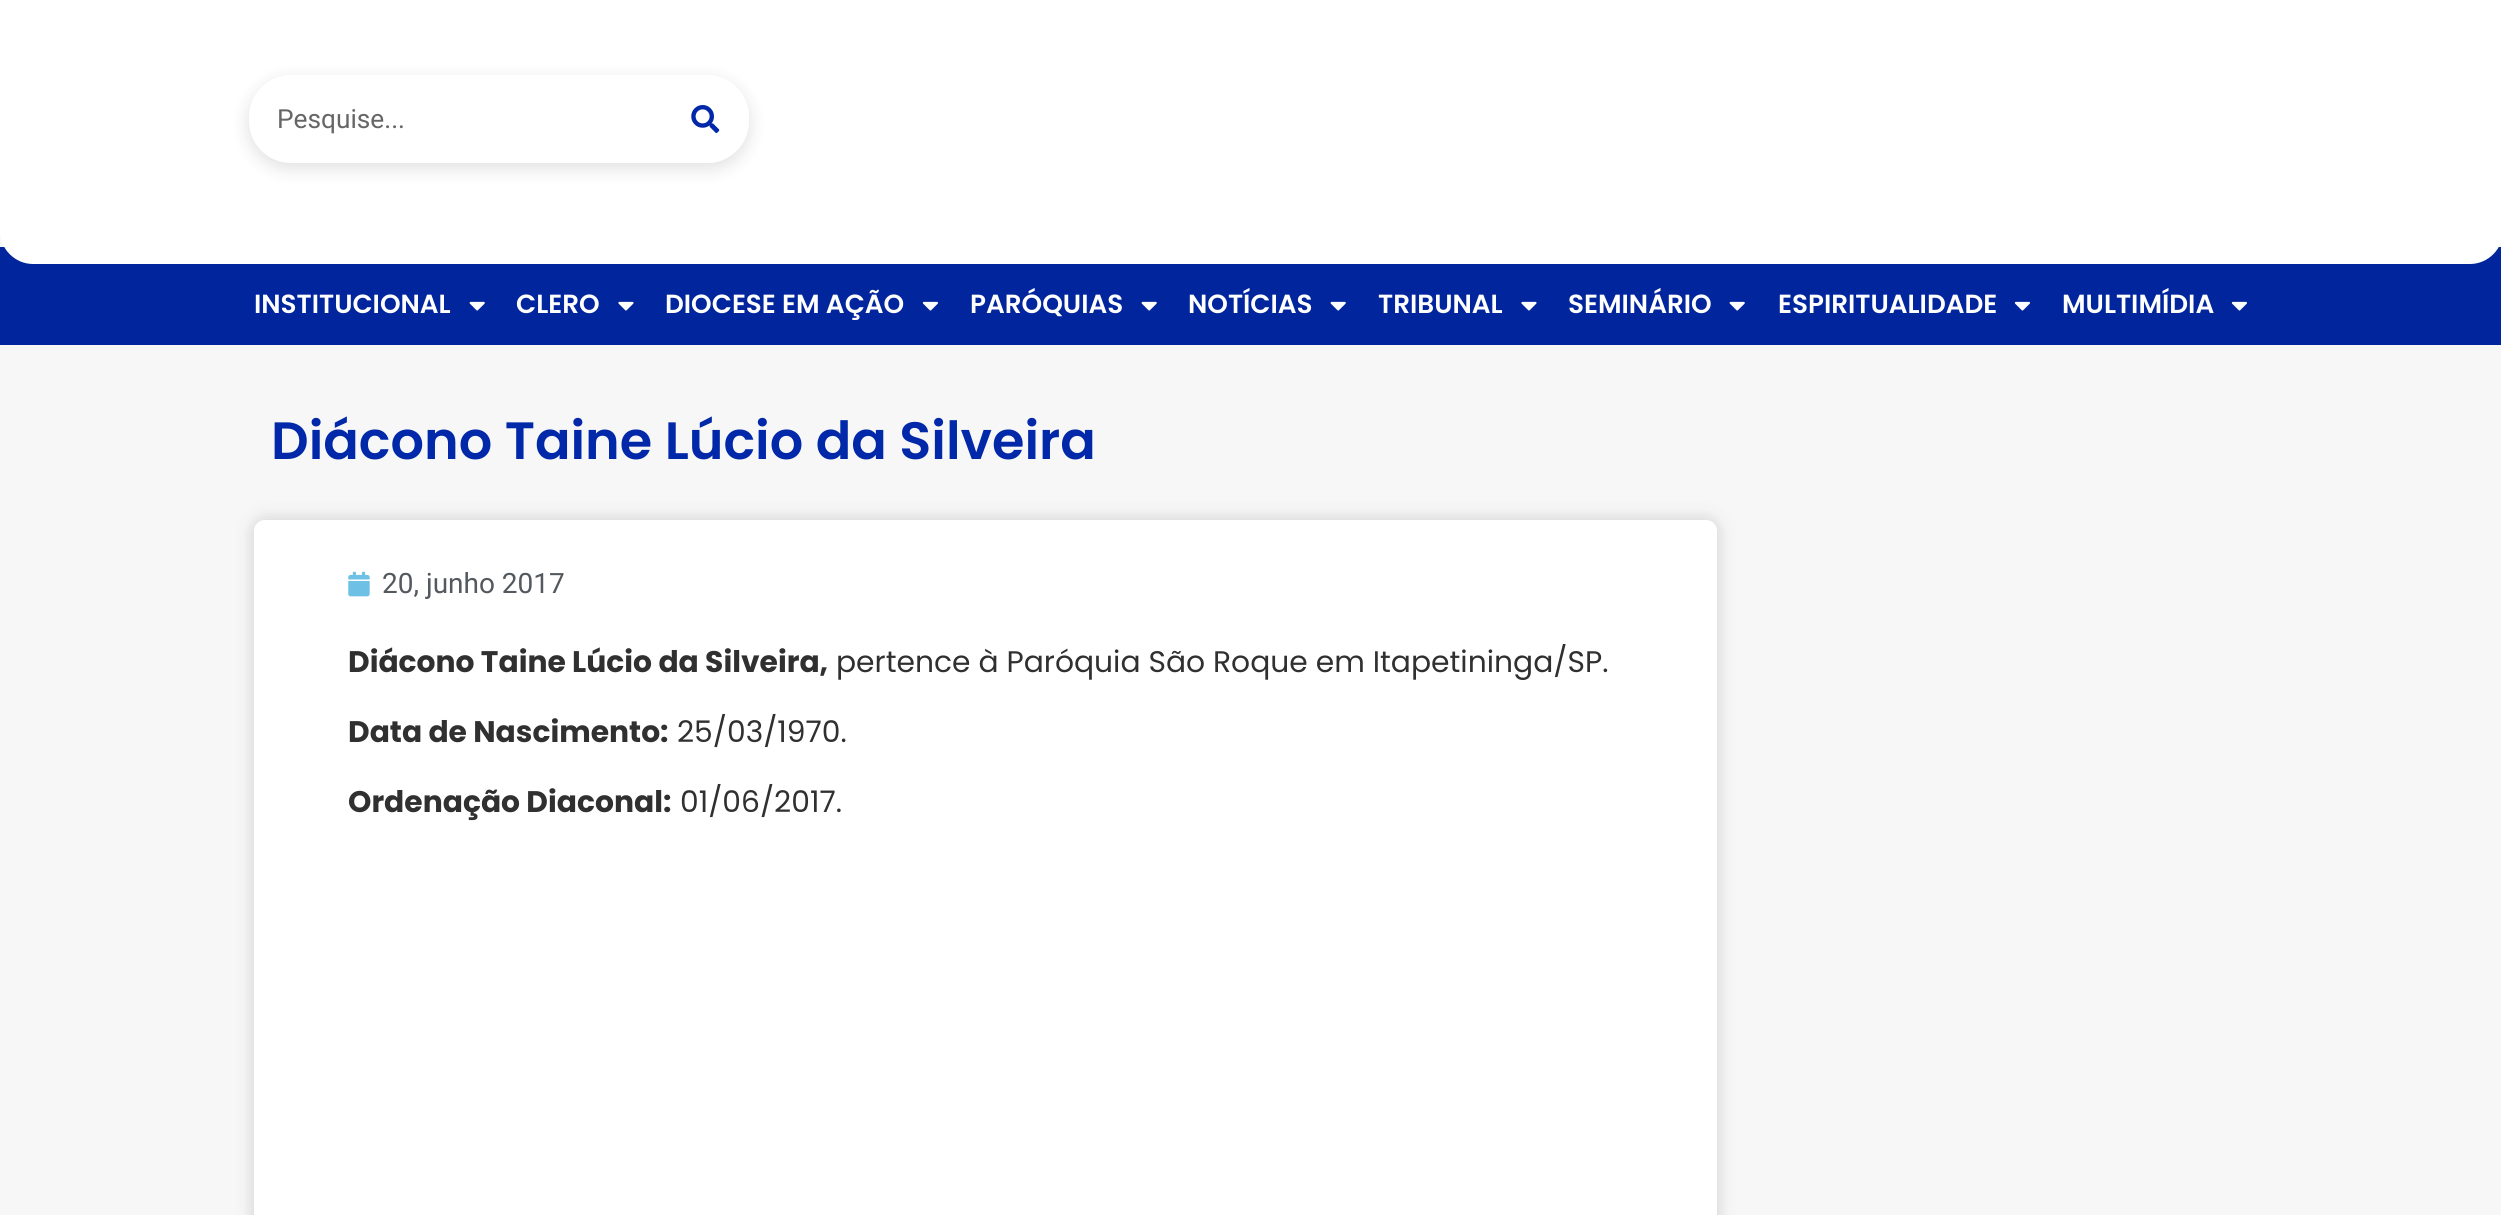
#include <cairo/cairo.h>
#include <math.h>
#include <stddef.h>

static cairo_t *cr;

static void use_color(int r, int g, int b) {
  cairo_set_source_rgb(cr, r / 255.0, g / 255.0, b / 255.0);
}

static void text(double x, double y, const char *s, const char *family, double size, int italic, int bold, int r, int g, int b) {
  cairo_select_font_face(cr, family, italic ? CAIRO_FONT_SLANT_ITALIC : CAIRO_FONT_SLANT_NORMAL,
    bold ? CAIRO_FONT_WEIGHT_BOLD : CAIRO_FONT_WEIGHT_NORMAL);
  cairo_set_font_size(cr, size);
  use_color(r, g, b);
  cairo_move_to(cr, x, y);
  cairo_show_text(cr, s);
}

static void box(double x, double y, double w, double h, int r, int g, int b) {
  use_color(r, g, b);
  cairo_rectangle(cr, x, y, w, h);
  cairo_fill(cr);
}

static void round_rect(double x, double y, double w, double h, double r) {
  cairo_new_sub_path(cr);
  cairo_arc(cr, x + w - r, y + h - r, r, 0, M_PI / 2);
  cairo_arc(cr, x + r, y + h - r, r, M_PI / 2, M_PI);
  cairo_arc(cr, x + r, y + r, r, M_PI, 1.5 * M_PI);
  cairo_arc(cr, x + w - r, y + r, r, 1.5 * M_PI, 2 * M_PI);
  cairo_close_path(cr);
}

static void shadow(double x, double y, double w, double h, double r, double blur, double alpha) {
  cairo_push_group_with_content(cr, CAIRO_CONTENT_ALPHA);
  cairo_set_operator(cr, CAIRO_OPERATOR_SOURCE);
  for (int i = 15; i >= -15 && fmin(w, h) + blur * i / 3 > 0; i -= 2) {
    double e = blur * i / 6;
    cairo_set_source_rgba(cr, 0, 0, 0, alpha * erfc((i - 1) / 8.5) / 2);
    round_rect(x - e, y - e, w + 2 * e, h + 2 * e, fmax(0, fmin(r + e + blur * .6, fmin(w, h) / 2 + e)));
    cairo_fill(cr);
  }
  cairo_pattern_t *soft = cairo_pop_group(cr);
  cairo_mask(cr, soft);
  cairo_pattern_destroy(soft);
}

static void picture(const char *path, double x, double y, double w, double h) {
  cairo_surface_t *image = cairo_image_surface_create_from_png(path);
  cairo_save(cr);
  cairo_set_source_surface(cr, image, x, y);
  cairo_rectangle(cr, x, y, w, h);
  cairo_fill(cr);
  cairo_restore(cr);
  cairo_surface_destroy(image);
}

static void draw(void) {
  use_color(247, 247, 247);
  cairo_paint(cr);
  box(0, 247, 2501, 98, 1, 37, 156);
  use_color(255, 255, 255);
  cairo_new_path(cr);
  cairo_move_to(cr, 0, 0);
  cairo_line_to(cr, 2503, 0);
  cairo_line_to(cr, 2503, 231);
  cairo_curve_to(cr, 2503, 249, 2488, 264, 2470, 264);
  cairo_line_to(cr, 33, 264);
  cairo_curve_to(cr, 15, 264, 0, 249, 0, 231);
  cairo_close_path(cr);
  cairo_fill(cr);
  use_color(0, 0, 0);
  shadow(249, 81, 500, 87, 42, 9, 0.13);
  use_color(255, 255, 255);
  round_rect(249, 75, 500, 88, 42);
  cairo_fill(cr);
  cairo_new_path(cr);
  cairo_move_to(cr, 662, 75);
  cairo_line_to(cr, 707, 75);
  cairo_curve_to(cr, 730, 75, 749, 94, 749, 117);
  cairo_line_to(cr, 749, 121);
  cairo_curve_to(cr, 749, 144, 730, 163, 707, 163);
  cairo_line_to(cr, 662, 163);
  cairo_close_path(cr);
  cairo_fill(cr);
  picture("img_01.png", 691, 105, 29, 28);
  picture("img_02.png", 469, 301, 16, 10);
  picture("img_03.png", 618, 301, 16, 10);
  picture("img_04.png", 922, 301, 16, 10);
  picture("img_02.png", 1141, 301, 16, 10);
  picture("img_02.png", 1330, 301, 16, 10);
  picture("img_03.png", 1521, 301, 16, 10);
  picture("img_02.png", 1729, 301, 16, 10);
  picture("img_04.png", 2014, 301, 16, 10);
  picture("img_04.png", 2231, 301, 16, 10);
  use_color(0, 0, 0);
  shadow(254, 520, 1463, 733, 11, 9, 0.17);
  use_color(255, 255, 255);
  round_rect(254, 520, 1463, 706, 11);
  cairo_fill(cr);
  picture("img_05.png", 348, 571, 22, 26);
  text(277, 128, "Pesquise...", "Roboto", 26.25, 0, 0, 102, 102, 102);
  text(254, 313, "INSTITUCIONAL", "Poppins SemiBold", 26.25, 0, 0, 255, 255, 255);
  text(516, 313, "CLERO", "Poppins SemiBold", 26.25, 0, 0, 255, 255, 255);
  text(665, 313, "DIOCESE EM AÇÃO", "Poppins SemiBold", 26.25, 0, 0, 255, 255, 255);
  text(970, 313, "PARÓQUIAS", "Poppins SemiBold", 26.25, 0, 0, 255, 255, 255);
  text(1188, 313, "NOTÍCIAS", "Poppins SemiBold", 26.25, 0, 0, 255, 255, 255);
  text(1378, 313, "TRIBUNAL", "Poppins SemiBold", 26.25, 0, 0, 255, 255, 255);
  text(1568, 313, "SEMINÁRIO", "Poppins SemiBold", 26.25, 0, 0, 255, 255, 255);
  text(1778, 313, "ESPIRITUALIDADE", "Poppins SemiBold", 26.25, 0, 0, 255, 255, 255);
  text(2062, 313, "MULTIMÍDIA", "Poppins SemiBold", 26.25, 0, 0, 255, 255, 255);
  text(271, 459, "Diácono Taine Lúcio da Silveira", "Poppins SemiBold", 52.5, 0, 0, 1, 40, 169);
  text(382, 593, "20, junho 2017", "Roboto", 28, 0, 0, 84, 89, 95);
  text(348, 672, "Diácono Taine Lúcio da Silveira,", "Poppins", 29.75, 0, 1, 48, 48, 48);
  text(836, 672, "pertence à Paróquia São Roque em Itapetininga/SP.", "Poppins", 29.75, 0, 0, 48, 48, 48);
  text(348, 742, "Data de Nascimento:", "Poppins", 29.75, 0, 1, 48, 48, 48);
  text(677, 742, "25/03/1970.", "Poppins", 29.75, 0, 0, 48, 48, 48);
  text(348, 812, "Ordenação Diaconal:", "Poppins", 29.75, 0, 1, 48, 48, 48);
  text(680, 812, "01/06/2017.", "Poppins", 29.75, 0, 0, 48, 48, 48);
}

int main(void) {
  cairo_surface_t *surface = cairo_image_surface_create(CAIRO_FORMAT_RGB24, 2501, 1215);
  cr = cairo_create(surface);
  cairo_font_options_t *options = cairo_font_options_create();
  cairo_font_options_set_hint_metrics(options, CAIRO_HINT_METRICS_OFF);
  cairo_font_options_set_hint_style(options, CAIRO_HINT_STYLE_NONE);
  cairo_set_font_options(cr, options);
  cairo_set_miter_limit(cr, 4);
  draw();
  cairo_surface_write_to_png(surface, "out.png");
  cairo_font_options_destroy(options);
  cairo_destroy(cr);
  cairo_surface_destroy(surface);
  return 0;
}
